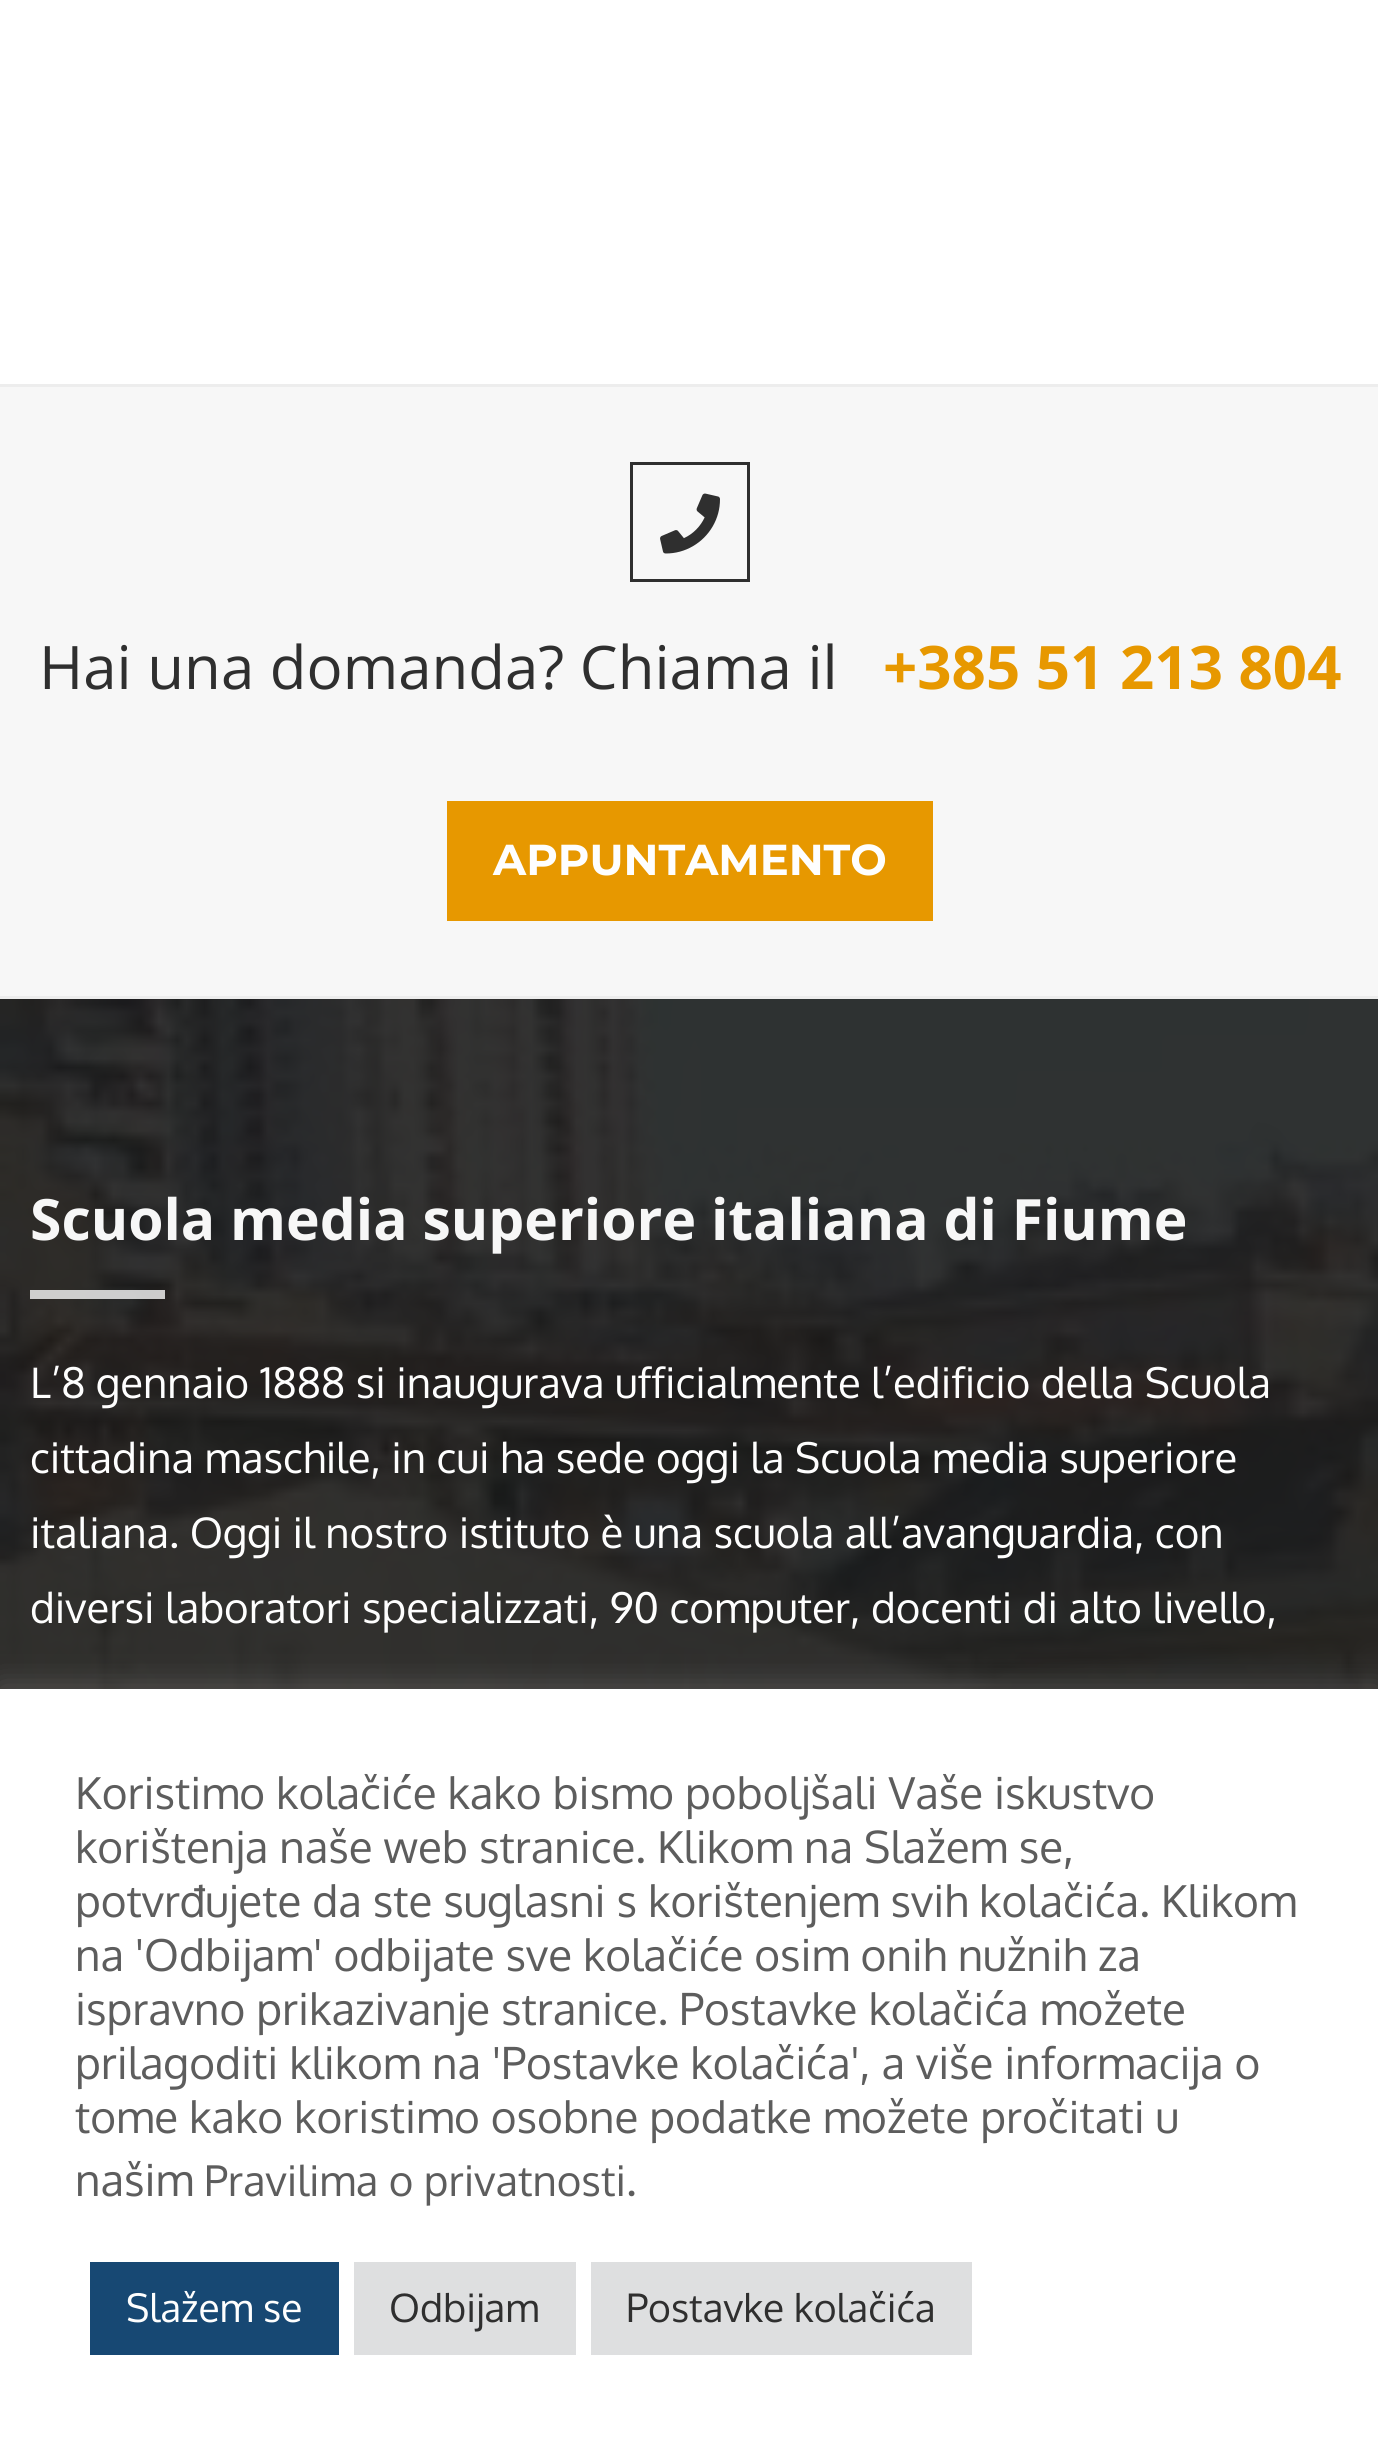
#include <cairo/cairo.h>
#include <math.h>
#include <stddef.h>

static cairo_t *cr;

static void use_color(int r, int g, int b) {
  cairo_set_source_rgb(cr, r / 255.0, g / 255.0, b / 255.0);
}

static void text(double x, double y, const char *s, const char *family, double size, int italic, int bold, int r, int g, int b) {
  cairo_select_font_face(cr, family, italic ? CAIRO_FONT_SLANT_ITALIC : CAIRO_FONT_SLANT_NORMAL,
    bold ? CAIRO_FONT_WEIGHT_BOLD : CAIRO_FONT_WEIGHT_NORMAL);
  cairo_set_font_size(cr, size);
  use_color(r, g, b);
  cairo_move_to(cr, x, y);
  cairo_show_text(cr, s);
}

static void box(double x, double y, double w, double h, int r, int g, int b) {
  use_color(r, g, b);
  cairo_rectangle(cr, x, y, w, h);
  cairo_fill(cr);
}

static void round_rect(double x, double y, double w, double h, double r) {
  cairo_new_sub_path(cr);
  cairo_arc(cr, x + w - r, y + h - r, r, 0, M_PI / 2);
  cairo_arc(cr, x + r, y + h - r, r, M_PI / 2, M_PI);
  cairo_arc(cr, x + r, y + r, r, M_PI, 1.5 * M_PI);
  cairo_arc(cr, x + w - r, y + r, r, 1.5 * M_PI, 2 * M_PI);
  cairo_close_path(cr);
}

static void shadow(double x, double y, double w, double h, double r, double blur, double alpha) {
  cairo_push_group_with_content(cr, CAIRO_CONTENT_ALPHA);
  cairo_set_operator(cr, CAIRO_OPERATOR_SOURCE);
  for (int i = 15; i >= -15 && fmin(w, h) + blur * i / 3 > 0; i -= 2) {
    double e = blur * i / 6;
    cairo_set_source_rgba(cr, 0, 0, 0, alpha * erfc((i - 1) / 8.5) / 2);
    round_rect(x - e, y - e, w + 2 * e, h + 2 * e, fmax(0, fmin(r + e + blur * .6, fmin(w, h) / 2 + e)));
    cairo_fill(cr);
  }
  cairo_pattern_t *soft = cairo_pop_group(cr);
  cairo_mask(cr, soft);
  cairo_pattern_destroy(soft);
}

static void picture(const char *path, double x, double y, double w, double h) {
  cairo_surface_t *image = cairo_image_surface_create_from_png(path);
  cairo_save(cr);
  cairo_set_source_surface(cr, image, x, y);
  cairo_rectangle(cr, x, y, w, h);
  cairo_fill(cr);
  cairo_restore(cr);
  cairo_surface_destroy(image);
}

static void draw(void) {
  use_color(255, 255, 255);
  cairo_paint(cr);
  box(0, 387, 1378, 609, 247, 247, 247);
  box(0, 384, 1378, 3, 237, 237, 237);
  box(0, 996, 1378, 3, 237, 237, 237);
  cairo_rectangle(cr, 631.5, 463.5, 117, 117);
  use_color(47, 47, 47);
  cairo_set_line_width(cr, 3);
  cairo_stroke(cr);
  picture("img_01.png", 660, 493, 60, 61);
  box(447, 801, 486, 120, 231, 152, 0);
  picture("img_02.png", 0, 999, 1378, 690);
  cairo_set_source_rgba(cr, 0.969, 0.969, 0.969, 0.8);
  cairo_rectangle(cr, 30, 1290, 135, 9);
  cairo_fill(cr);
  use_color(172, 171, 171);
  shadow(0, 1686, 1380, 756, 0, 15, 0.3);
  box(0, 1689, 1378, 755, 255, 255, 255);
  box(90, 2262, 249, 93, 23, 72, 115);
  box(354, 2262, 222, 93, 222, 223, 224);
  box(591, 2262, 381, 93, 222, 223, 224);
  text(39, 689, "Hai una domanda? Chiama il", "Open Sans", 60, 0, 0, 47, 47, 47);
  text(883, 689, "+385 51 213 804", "Open Sans", 60, 0, 1, 231, 152, 0);
  text(493, 875, "APPUNTAMENTO", "Montserrat", 43.25, 0, 1, 254, 254, 254);
  text(30, 1240, "Scuola media superiore italiana di Fiume", "Open Sans", 57, 0, 1, 247, 247, 247);
  text(30, 1398, "L’8 gennaio 1888 si inaugurava ufficialmente l’edificio della Scuola", "Oxygen", 42, 0, 0, 254, 254, 254);
  text(30, 1473, "cittadina maschile, in cui ha sede oggi la Scuola media superiore", "Oxygen", 42, 0, 0, 254, 254, 254);
  text(30, 1548, "italiana. Oggi il nostro istituto è una scuola all’avanguardia, con", "Oxygen", 42, 0, 0, 254, 254, 254);
  text(30, 1623, "diversi laboratori specializzati, 90 computer, docenti di alto livello,", "Oxygen", 42, 0, 0, 254, 254, 254);
  text(75, 1809, "Koristimo kolačiće kako bismo poboljšali Vaše iskustvo", "Oxygen", 44, 0, 0, 93, 93, 93);
  text(75, 1863, "korištenja naše web stranice. Klikom na Slažem se,", "Oxygen", 44, 0, 0, 93, 93, 93);
  text(75, 1917, "potvrđujete da ste suglasni s korištenjem svih kolačića. Klikom", "Oxygen", 44, 0, 0, 93, 93, 93);
  text(75, 1971, "na 'Odbijam' odbijate sve kolačiće osim onih nužnih za", "Oxygen", 44, 0, 0, 93, 93, 93);
  text(75, 2025, "ispravno prikazivanje stranice. Postavke kolačića možete", "Oxygen", 44, 0, 0, 93, 93, 93);
  text(75, 2079, "prilagoditi klikom na 'Postavke kolačića', a više informacija o", "Oxygen", 44, 0, 0, 93, 93, 93);
  text(75, 2133, "tome kako koristimo osobne podatke možete pročitati u", "Oxygen", 44, 0, 0, 93, 93, 93);
  text(75, 2196, "našim", "Oxygen", 44, 0, 0, 93, 93, 93);
  text(204, 2196, "Pravilima o privatnosti", "Oxygen", 42, 0, 0, 93, 93, 93);
  text(626, 2196, ".", "Oxygen", 44, 0, 0, 93, 93, 93);
  text(126, 2322, "Slažem se", "Oxygen", 39, 0, 0, 254, 254, 254);
  text(389, 2322, "Odbijam", "Oxygen", 39, 0, 0, 47, 47, 47);
  text(626, 2322, "Postavke kolačića", "Oxygen", 39, 0, 0, 47, 47, 47);
}

int main(void) {
  cairo_surface_t *surface = cairo_image_surface_create(CAIRO_FORMAT_RGB24, 1378, 2444);
  cr = cairo_create(surface);
  cairo_font_options_t *options = cairo_font_options_create();
  cairo_font_options_set_hint_metrics(options, CAIRO_HINT_METRICS_OFF);
  cairo_font_options_set_hint_style(options, CAIRO_HINT_STYLE_NONE);
  cairo_set_font_options(cr, options);
  cairo_set_miter_limit(cr, 4);
  draw();
  cairo_surface_write_to_png(surface, "out.png");
  cairo_font_options_destroy(options);
  cairo_destroy(cr);
  cairo_surface_destroy(surface);
  return 0;
}
